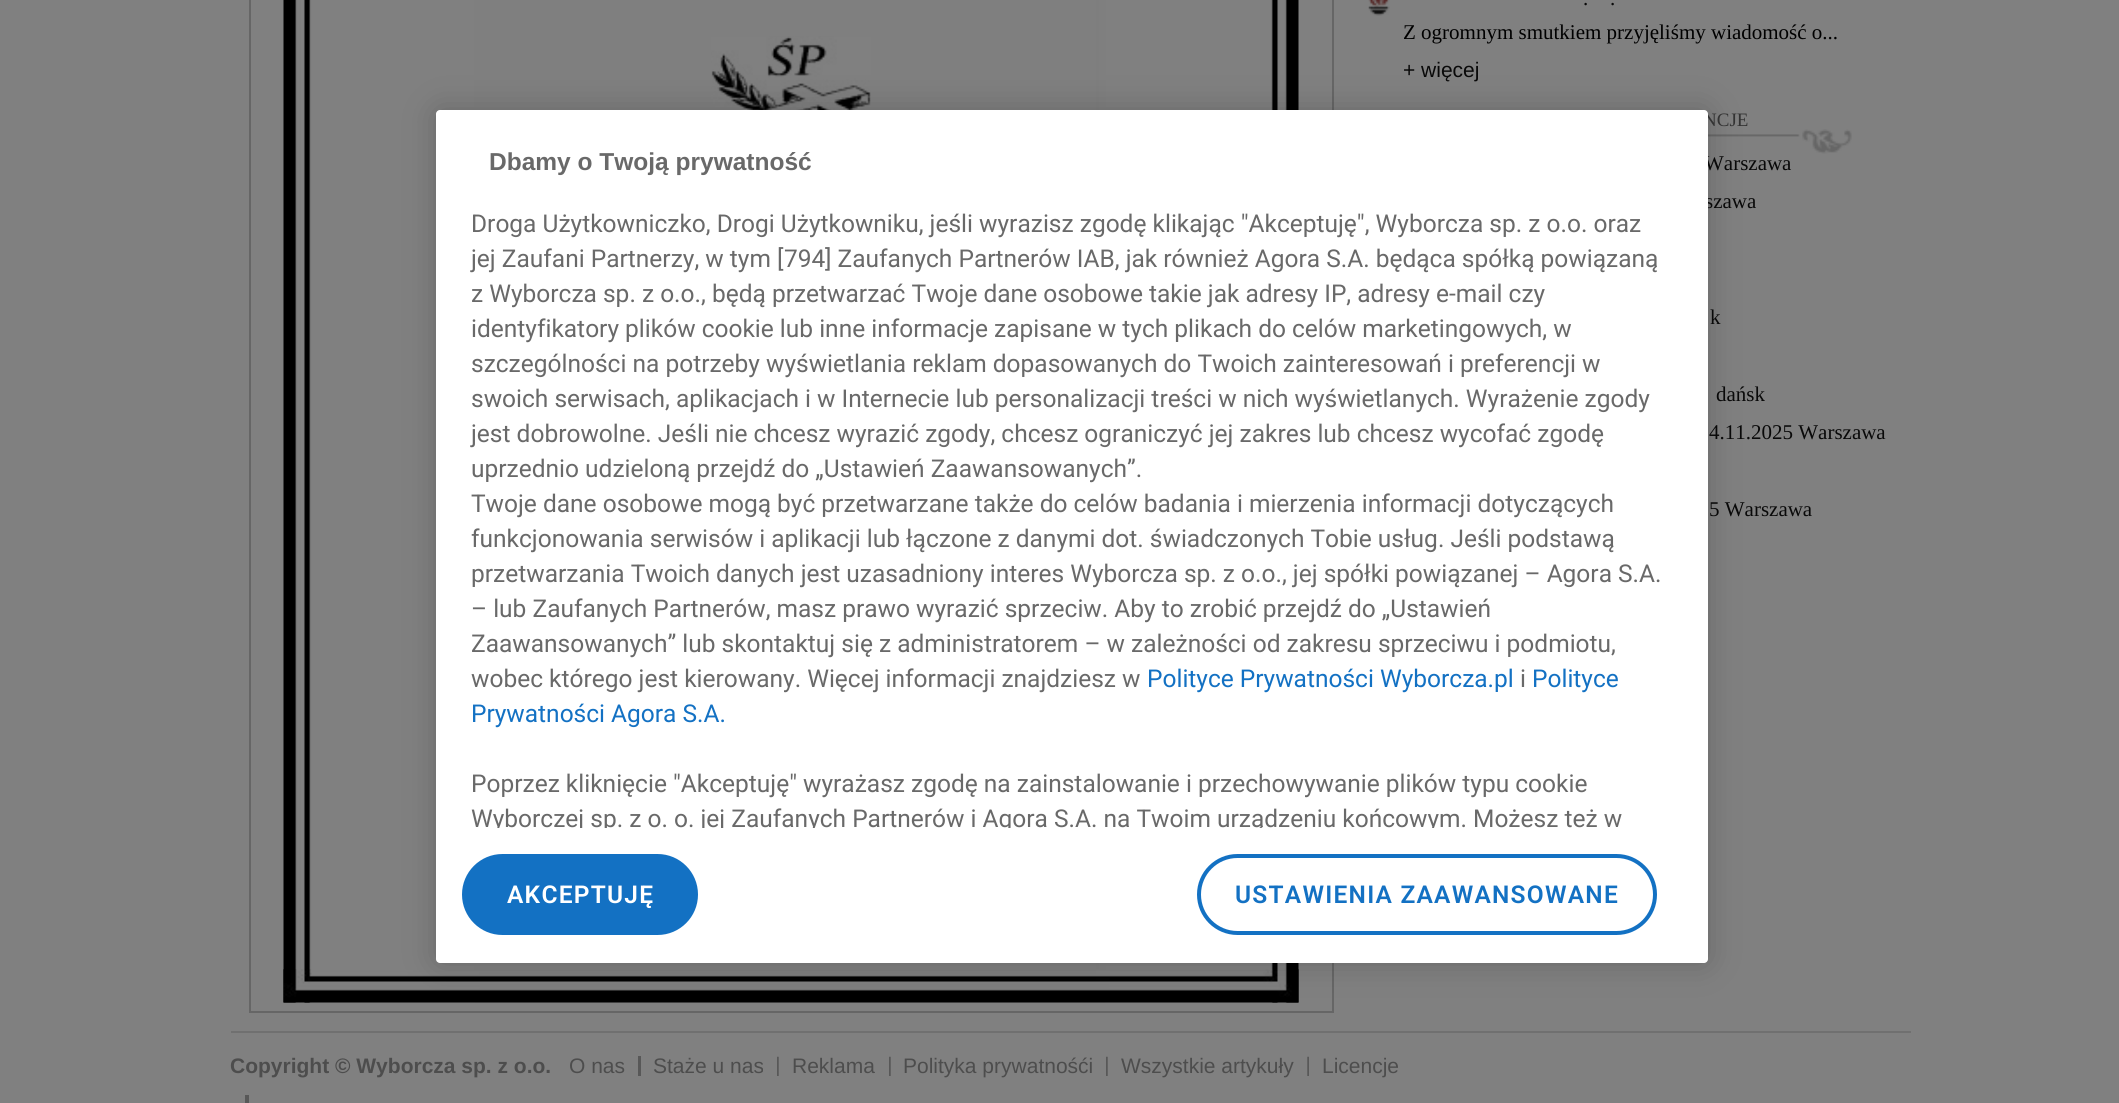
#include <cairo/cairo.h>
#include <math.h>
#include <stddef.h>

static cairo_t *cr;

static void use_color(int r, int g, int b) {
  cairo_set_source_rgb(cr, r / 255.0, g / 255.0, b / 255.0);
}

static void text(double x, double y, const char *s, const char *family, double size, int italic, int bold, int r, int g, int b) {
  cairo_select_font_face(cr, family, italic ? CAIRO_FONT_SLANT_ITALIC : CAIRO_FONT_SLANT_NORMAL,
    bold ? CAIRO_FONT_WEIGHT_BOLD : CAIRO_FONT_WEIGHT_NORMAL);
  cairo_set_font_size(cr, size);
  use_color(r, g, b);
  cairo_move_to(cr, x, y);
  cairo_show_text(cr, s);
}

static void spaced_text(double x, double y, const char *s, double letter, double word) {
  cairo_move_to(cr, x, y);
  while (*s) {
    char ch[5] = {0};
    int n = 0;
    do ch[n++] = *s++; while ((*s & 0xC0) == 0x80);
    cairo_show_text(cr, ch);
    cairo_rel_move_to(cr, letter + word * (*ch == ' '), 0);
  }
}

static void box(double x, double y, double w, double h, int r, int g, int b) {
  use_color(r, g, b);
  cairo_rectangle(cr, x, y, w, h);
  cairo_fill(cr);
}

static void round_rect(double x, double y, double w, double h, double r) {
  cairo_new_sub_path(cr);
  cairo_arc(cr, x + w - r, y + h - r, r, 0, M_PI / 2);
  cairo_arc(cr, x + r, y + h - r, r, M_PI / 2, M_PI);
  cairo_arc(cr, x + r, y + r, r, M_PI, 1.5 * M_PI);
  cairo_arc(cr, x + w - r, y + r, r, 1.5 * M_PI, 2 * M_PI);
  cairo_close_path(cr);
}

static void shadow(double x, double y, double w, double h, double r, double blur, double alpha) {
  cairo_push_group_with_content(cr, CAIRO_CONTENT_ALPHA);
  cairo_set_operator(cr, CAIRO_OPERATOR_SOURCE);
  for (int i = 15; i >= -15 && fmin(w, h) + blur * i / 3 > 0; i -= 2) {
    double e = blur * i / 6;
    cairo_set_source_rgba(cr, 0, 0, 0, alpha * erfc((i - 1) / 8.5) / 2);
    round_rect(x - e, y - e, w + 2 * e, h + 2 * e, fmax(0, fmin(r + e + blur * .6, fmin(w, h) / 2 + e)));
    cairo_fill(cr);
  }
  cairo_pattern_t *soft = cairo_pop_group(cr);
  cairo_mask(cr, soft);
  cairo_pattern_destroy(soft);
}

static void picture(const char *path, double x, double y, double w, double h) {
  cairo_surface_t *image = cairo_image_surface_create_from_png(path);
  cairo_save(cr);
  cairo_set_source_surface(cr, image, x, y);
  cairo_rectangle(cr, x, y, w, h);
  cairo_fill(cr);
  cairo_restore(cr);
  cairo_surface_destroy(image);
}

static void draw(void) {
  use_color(128, 128, 128);
  cairo_paint(cr);
  cairo_rectangle(cr, 250, -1, 1083, 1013);
  use_color(102, 102, 102);
  cairo_stroke(cr);
  picture("img_01.png", 283, 0, 1016, 1003);
  picture("img_02.png", 711, 36, 160, 74);
  picture("img_03.png", 283, 969, 1016, 34);
  picture("img_04.png", 1368, 0, 22, 16);
  picture("img_05.png", 1708, 129, 144, 25);
  use_color(0, 0, 0);
  shadow(436, 110, 1272, 853, 4, 16, 0.2);
  box(231, 1031, 1680, 2, 112, 112, 112);
  box(638, 1056, 3, 20, 88, 88, 88);
  picture("img_06.png", 777, 1056, 2, 20);
  picture("img_06.png", 889, 1056, 2, 20);
  picture("img_06.png", 1106, 1056, 2, 20);
  picture("img_07.png", 1307, 1056, 2, 20);
  box(245, 1095, 4, 8, 88, 88, 88);
  text(1583, 5, ".", "Liberation Serif", 21, 0, 0, 9, 9, 9);
  text(1610, 5, ".", "Liberation Serif", 21, 0, 0, 9, 9, 9);
  text(1403, 39, "Z ogromnym smutkiem przyjęliśmy wiadomość o...", "Liberation Serif", 21, 0, 0, 0, 0, 0);
  text(1403, 77, "+ więcej", "Liberation Sans", 21, 0, 0, 9, 9, 9);
  text(1703, 126, "NCJE", "Liberation Serif", 19, 0, 0, 51, 51, 51);
  text(1704, 170, "Warszawa", "Liberation Serif", 21, 0, 0, 9, 9, 9);
  text(1705, 208, "szawa", "Liberation Serif", 21, 0, 0, 9, 9, 9);
  text(1710, 324, "k", "Liberation Serif", 21, 0, 0, 9, 9, 9);
  text(1716, 401, "dańsk", "Liberation Serif", 21, 0, 0, 9, 9, 9);
  text(1709, 439, "4.11.2025 Warszawa", "Liberation Serif", 21, 0, 0, 9, 9, 9);
  text(1709, 516, "5 Warszawa", "Liberation Serif", 21, 0, 0, 9, 9, 9);
  use_color(255, 255, 255);
  round_rect(436, 110, 1272, 853, 4);
  cairo_fill(cr);
  text(489, 170, "Dbamy o Twoją prywatność", "Liberation Sans", 24.5, 0, 1, 105, 105, 105);
  text(471, 232, "Droga Użytkowniczko, Drogi Użytkowniku, jeśli wyrazisz zgodę klikając \"Akceptuję\", Wyborcza sp. z o.o. oraz", "Roboto", 24.5, 0, 0, 105, 105, 105);
  text(471, 267, "jej Zaufani Partnerzy, w tym [", "Roboto", 24.5, 0, 0, 105, 105, 105);
  text(784, 267, "794", "Roboto", 24.5, 0, 0, 105, 105, 105);
  text(825, 267, "] Zaufanych Partnerów IAB, jak również Agora S.A. będąca spółką powiązaną", "Roboto", 24.5, 0, 0, 105, 105, 105);
  text(471, 302, "z Wyborcza sp. z o.o., będą przetwarzać Twoje dane osobowe takie jak adresy IP, adresy e-mail czy", "Roboto", 24.5, 0, 0, 105, 105, 105);
  text(471, 337, "identyfikatory plików cookie lub inne informacje zapisane w tych plikach do celów marketingowych, w", "Roboto", 24.5, 0, 0, 105, 105, 105);
  text(471, 372, "szczególności na potrzeby wyświetlania reklam dopasowanych do Twoich zainteresowań i preferencji w", "Roboto", 24.5, 0, 0, 105, 105, 105);
  text(471, 407, "swoich serwisach, aplikacjach i w Internecie lub personalizacji treści w nich wyświetlanych. Wyrażenie zgody", "Roboto", 24.5, 0, 0, 105, 105, 105);
  text(471, 442, "jest dobrowolne. Jeśli nie chcesz wyrazić zgody, chcesz ograniczyć jej zakres lub chcesz wycofać zgodę", "Roboto", 24.5, 0, 0, 105, 105, 105);
  text(471, 477, "uprzednio udzieloną przejdź do „Ustawień Zaawansowanych”.", "Roboto", 24.5, 0, 0, 105, 105, 105);
  text(471, 512, "Twoje dane osobowe mogą być przetwarzane także do celów badania i mierzenia informacji dotyczących", "Roboto", 24.5, 0, 0, 105, 105, 105);
  text(471, 547, "funkcjonowania serwisów i aplikacji lub łączone z danymi dot. świadczonych Tobie usług. Jeśli podstawą", "Roboto", 24.5, 0, 0, 105, 105, 105);
  text(471, 582, "przetwarzania Twoich danych jest uzasadniony interes Wyborcza sp. z o.o., jej spółki powiązanej – Agora S.A.", "Roboto", 24.5, 0, 0, 105, 105, 105);
  text(471, 617, "– lub Zaufanych Partnerów, masz prawo wyrazić sprzeciw. Aby to zrobić przejdź do „Ustawień", "Roboto", 24.5, 0, 0, 105, 105, 105);
  text(471, 652, "Zaawansowanych” lub skontaktuj się z administratorem – w zależności od zakresu sprzeciwu i podmiotu,", "Roboto", 24.5, 0, 0, 105, 105, 105);
  text(471, 687, "wobec którego jest kierowany. Więcej informacji znajdziesz w", "Roboto", 24.5, 0, 0, 105, 105, 105);
  text(1147, 687, "Polityce Prywatności Wyborcza.pl", "Roboto", 24.5, 0, 0, 19, 113, 195);
  text(1520, 687, "i", "Roboto", 24.5, 0, 0, 105, 105, 105);
  text(1532, 687, "Polityce", "Roboto", 24.5, 0, 0, 19, 113, 195);
  text(471, 722, "Prywatności Agora S.A.", "Roboto", 24.5, 0, 0, 19, 113, 195);
  text(471, 792, "Poprzez kliknięcie \"Akceptuję\" wyrażasz zgodę na zainstalowanie i przechowywanie plików typu cookie", "Roboto", 24.5, 0, 0, 105, 105, 105);
  cairo_save(cr);
  cairo_rectangle(cr, 436, 145, 1267, 683);
  cairo_clip(cr);
  text(471, 827, "Wyborczej sp. z o. o. jej Zaufanych Partnerów i Agora S.A. na Twoim urządzeniu końcowym. Możesz też w", "Roboto", 24.5, 0, 0, 105, 105, 105);
  cairo_restore(cr);
  use_color(19, 113, 195);
  round_rect(463, 855, 234, 79, 39.5);
  cairo_fill_preserve(cr);
  cairo_stroke(cr);
  cairo_select_font_face(cr, "Roboto SemiBold", CAIRO_FONT_SLANT_NORMAL, CAIRO_FONT_WEIGHT_NORMAL);
  use_color(255, 255, 255);
  spaced_text(507, 903, "AKCEPTUJĘ", 1.25, 0);
  round_rect(1199, 856, 456, 77, 38.5);
  use_color(19, 113, 195);
  cairo_set_line_width(cr, 4);
  cairo_stroke(cr);
  spaced_text(1235, 903, "USTAWIENIA ZAAWANSOWANE", 1.25, 0);
  text(230, 1073, "Copyright © Wyborcza sp. z o.o.", "Liberation Sans", 21, 0, 1, 77, 77, 77);
  text(569, 1073, "O nas", "Liberation Sans", 21, 0, 0, 77, 77, 77);
  text(653, 1073, "Staże u nas", "Liberation Sans", 21, 0, 0, 77, 77, 77);
  text(792, 1073, "Reklama", "Liberation Sans", 21, 0, 0, 77, 77, 77);
  text(903, 1073, "Polityka prywatnośći", "Liberation Sans", 21, 0, 0, 77, 77, 77);
  text(1121, 1073, "Wszystkie artykuły", "Liberation Sans", 21, 0, 0, 77, 77, 77);
  text(1322, 1073, "Licencje", "Liberation Sans", 21, 0, 0, 77, 77, 77);
}

int main(void) {
  cairo_surface_t *surface = cairo_image_surface_create(CAIRO_FORMAT_RGB24, 2119, 1103);
  cr = cairo_create(surface);
  cairo_font_options_t *options = cairo_font_options_create();
  cairo_font_options_set_hint_metrics(options, CAIRO_HINT_METRICS_OFF);
  cairo_font_options_set_hint_style(options, CAIRO_HINT_STYLE_NONE);
  cairo_set_font_options(cr, options);
  cairo_set_miter_limit(cr, 4);
  draw();
  cairo_surface_write_to_png(surface, "out.png");
  cairo_font_options_destroy(options);
  cairo_destroy(cr);
  cairo_surface_destroy(surface);
  return 0;
}
